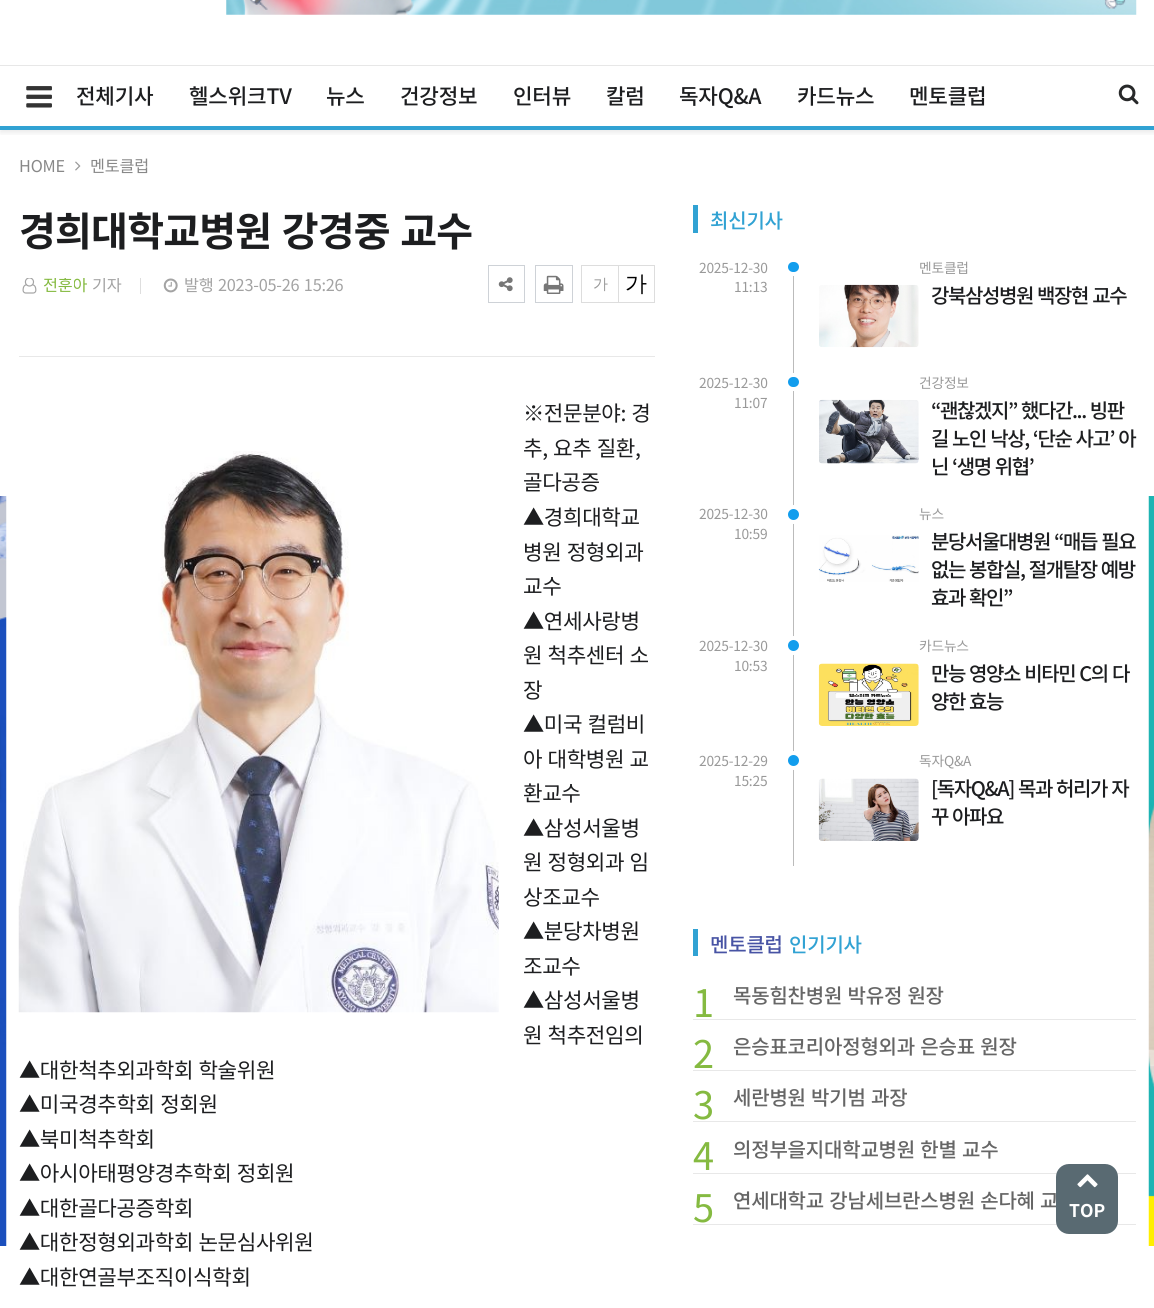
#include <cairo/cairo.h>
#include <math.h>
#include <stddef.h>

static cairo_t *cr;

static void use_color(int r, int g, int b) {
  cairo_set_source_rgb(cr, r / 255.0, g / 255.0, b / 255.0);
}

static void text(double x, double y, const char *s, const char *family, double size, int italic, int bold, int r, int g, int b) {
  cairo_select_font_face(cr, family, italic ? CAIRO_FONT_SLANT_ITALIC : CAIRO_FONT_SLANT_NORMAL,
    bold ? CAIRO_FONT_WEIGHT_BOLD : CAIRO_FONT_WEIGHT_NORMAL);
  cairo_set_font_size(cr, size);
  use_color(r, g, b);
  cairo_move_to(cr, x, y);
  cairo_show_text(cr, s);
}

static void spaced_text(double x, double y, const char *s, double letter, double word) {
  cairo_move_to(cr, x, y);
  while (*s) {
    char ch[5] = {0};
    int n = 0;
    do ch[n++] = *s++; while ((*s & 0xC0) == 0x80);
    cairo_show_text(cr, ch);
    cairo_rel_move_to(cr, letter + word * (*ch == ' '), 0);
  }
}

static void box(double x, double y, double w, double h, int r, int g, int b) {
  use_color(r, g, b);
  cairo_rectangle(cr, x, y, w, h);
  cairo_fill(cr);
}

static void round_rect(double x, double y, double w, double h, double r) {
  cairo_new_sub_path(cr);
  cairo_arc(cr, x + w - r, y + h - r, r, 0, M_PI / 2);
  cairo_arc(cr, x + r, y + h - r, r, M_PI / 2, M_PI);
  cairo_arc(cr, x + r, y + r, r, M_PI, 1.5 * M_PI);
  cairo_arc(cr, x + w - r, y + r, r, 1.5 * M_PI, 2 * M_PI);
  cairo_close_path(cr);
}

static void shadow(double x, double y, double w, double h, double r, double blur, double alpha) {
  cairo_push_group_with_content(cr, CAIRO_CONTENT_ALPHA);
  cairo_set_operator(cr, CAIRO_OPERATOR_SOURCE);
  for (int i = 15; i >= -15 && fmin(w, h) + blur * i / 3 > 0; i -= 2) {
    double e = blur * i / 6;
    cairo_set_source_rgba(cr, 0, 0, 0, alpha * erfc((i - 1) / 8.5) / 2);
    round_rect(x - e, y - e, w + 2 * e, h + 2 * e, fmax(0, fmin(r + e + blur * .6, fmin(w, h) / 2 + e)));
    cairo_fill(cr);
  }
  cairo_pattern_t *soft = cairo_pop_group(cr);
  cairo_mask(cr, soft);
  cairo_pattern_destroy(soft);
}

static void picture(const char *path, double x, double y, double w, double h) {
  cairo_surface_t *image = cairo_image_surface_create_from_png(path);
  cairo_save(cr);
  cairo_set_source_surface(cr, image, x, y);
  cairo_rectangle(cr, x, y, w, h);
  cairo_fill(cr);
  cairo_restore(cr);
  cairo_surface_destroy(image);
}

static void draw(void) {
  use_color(255, 255, 255);
  cairo_paint(cr);
  cairo_save(cr);
  cairo_rectangle(cr, 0, 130, 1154, 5);
  cairo_clip(cr);
  use_color(0, 0, 0);
  shadow(0, -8, 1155, 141, 0, 2.5, 0.08);
  cairo_restore(cr);
  box(0, 126, 1154, 4, 49, 162, 211);
  box(0, 65, 1154, 1, 231, 231, 231);
  picture("img_01.png", 226, 0, 911, 15);
  picture("img_02.png", 26, 86, 26, 22);
  picture("img_03.png", 1118, 84, 21, 21);
  picture("img_04.png", 75, 161, 6, 10);
  picture("img_05.png", 0, 496, 7, 750);
  box(140, 278, 1, 16, 222, 222, 222);
  picture("img_06.png", 22, 278, 15, 16);
  picture("img_07.png", 163, 278, 15, 15);
  cairo_rectangle(cr, 488.5, 265.5, 36, 37);
  use_color(206, 210, 215);
  cairo_set_line_width(cr, 1);
  cairo_stroke(cr);
  picture("img_08.png", 498, 277, 15, 15);
  cairo_rectangle(cr, 535.5, 265.5, 37, 37);
  cairo_stroke(cr);
  picture("img_09.png", 543, 275, 21, 19);
  cairo_rectangle(cr, 581.5, 265.5, 37, 37);
  use_color(221, 221, 221);
  cairo_stroke(cr);
  cairo_rectangle(cr, 618.5, 265.5, 36, 37);
  cairo_stroke(cr);
  box(19, 356, 636, 1, 232, 232, 232);
  picture("img_10.png", 18, 451, 481, 562);
  box(693, 205, 5, 28, 49, 162, 211);
  box(793, 276, 1, 97, 187, 187, 187);
  use_color(18, 157, 237);
  round_rect(786, 260, 15, 14, 7);
  cairo_fill_preserve(cr);
  use_color(255, 255, 255);
  cairo_set_line_width(cr, 4);
  cairo_stroke(cr);
  picture("img_11.png", 819, 284, 100, 64);
  box(793, 391, 1, 475, 187, 187, 187);
  use_color(18, 157, 237);
  round_rect(786, 375, 15, 14, 7);
  cairo_fill_preserve(cr);
  use_color(255, 255, 255);
  cairo_stroke(cr);
  picture("img_12.png", 819, 399, 100, 65);
  use_color(18, 157, 237);
  cairo_arc(cr, 793.5, 514.5, 7.5, 0, 2 * M_PI);
  cairo_fill_preserve(cr);
  use_color(255, 255, 255);
  cairo_stroke(cr);
  picture("img_13.png", 818, 535, 101, 47);
  use_color(18, 157, 237);
  cairo_arc(cr, 793.5, 645.5, 7.5, 0, 2 * M_PI);
  cairo_fill_preserve(cr);
  use_color(255, 255, 255);
  cairo_stroke(cr);
  picture("img_14.png", 818, 663, 101, 63);
  use_color(18, 157, 237);
  cairo_arc(cr, 793.5, 760.5, 7.5, 0, 2 * M_PI);
  cairo_fill_preserve(cr);
  use_color(255, 255, 255);
  cairo_stroke(cr);
  picture("img_15.png", 818, 778, 101, 63);
  box(693, 929, 5, 27, 49, 162, 211);
  box(693, 1019, 443, 1, 232, 232, 232);
  box(693, 1070, 443, 1, 232, 232, 232);
  box(693, 1121, 443, 1, 232, 232, 232);
  box(693, 1173, 443, 1, 232, 232, 232);
  box(693, 1224, 443, 1, 232, 232, 232);
  picture("img_16.png", 1148, 496, 6, 750);
  cairo_select_font_face(cr, "Noto Sans KR Medium", CAIRO_FONT_SLANT_NORMAL, CAIRO_FONT_WEIGHT_NORMAL);
  cairo_set_font_size(cr, 21.25);
  use_color(29, 30, 32);
  spaced_text(76, 104, "전체기사", -0.2, 0);
  spaced_text(189, 104, "헬스위크TV", -0.2, 0);
  spaced_text(326, 104, "뉴스", -0.2, 0);
  spaced_text(400, 104, "건강정보", -0.2, 0);
  spaced_text(513, 104, "인터뷰", -0.2, 0);
  spaced_text(606, 104, "칼럼", -0.2, 0);
  spaced_text(679, 104, "독자Q&A", -0.2, 0);
  spaced_text(797, 104, "카드뉴스", -0.2, 0);
  spaced_text(909, 104, "멘토클럽", -0.2, 0);
  cairo_select_font_face(cr, "Noto Sans KR", CAIRO_FONT_SLANT_NORMAL, CAIRO_FONT_WEIGHT_NORMAL);
  cairo_set_font_size(cr, 16.25);
  use_color(136, 136, 136);
  spaced_text(19, 172, "HOME", -0.2, 0);
  spaced_text(90, 172, "멘토클럽", -0.2, 0);
  cairo_select_font_face(cr, "Noto Sans KR", CAIRO_FONT_SLANT_NORMAL, CAIRO_FONT_WEIGHT_BOLD);
  cairo_set_font_size(cr, 40);
  use_color(29, 30, 32);
  spaced_text(19, 246, "경희대학교병원 강경중 교수", -0.75, 2);
  cairo_save(cr);
  cairo_rectangle(cr, 19, 278, 325, 16);
  cairo_clip(cr);
  cairo_select_font_face(cr, "Noto Sans KR", CAIRO_FONT_SLANT_NORMAL, CAIRO_FONT_WEIGHT_NORMAL);
  cairo_set_font_size(cr, 16.25);
  use_color(133, 186, 65);
  spaced_text(43, 291, "전훈아", -0.2, 0);
  use_color(163, 163, 163);
  spaced_text(92, 291, "기자", -0.2, 0);
  spaced_text(184, 291, "발행 2023-05-26 15:26", -0.2, 1);
  cairo_restore(cr);
  cairo_select_font_face(cr, "WenQuanYi Zen Hei Medium", CAIRO_FONT_SLANT_NORMAL, CAIRO_FONT_WEIGHT_NORMAL);
  cairo_set_font_size(cr, 15);
  use_color(153, 153, 153);
  spaced_text(593, 289, "가", -0.2, 0);
  cairo_set_font_size(cr, 22);
  use_color(0, 0, 0);
  spaced_text(625, 291, "가", -0.2, 0);
  cairo_select_font_face(cr, "Noto Sans KR", CAIRO_FONT_SLANT_NORMAL, CAIRO_FONT_WEIGHT_NORMAL);
  cairo_set_font_size(cr, 21.25);
  use_color(29, 30, 32);
  spaced_text(523, 421, "※전문분야: 경", -0.4, 1);
  spaced_text(523, 456, "추, 요추 질환,", -0.4, 1);
  spaced_text(523, 490, "골다공증", -0.4, 0);
  spaced_text(523, 525, "▲경희대학교", -0.4, 0);
  spaced_text(523, 560, "병원 정형외과", -0.4, 1);
  spaced_text(523, 594, "교수", -0.4, 0);
  spaced_text(523, 629, "▲연세사랑병", -0.4, 0);
  spaced_text(523, 663, "원 척추센터 소", -0.4, 1);
  spaced_text(523, 698, "장", -0.4, 0);
  spaced_text(523, 732, "▲미국 컬럼비", -0.4, 1);
  spaced_text(523, 767, "아 대학병원 교", -0.4, 1);
  spaced_text(523, 801, "환교수", -0.4, 0);
  spaced_text(523, 836, "▲삼성서울병", -0.4, 0);
  spaced_text(523, 870, "원 정형외과 임", -0.4, 1);
  spaced_text(523, 905, "상조교수", -0.4, 0);
  spaced_text(523, 939, "▲분당차병원", -0.4, 0);
  spaced_text(523, 974, "조교수", -0.4, 0);
  spaced_text(523, 1008, "▲삼성서울병", -0.4, 0);
  spaced_text(523, 1043, "원 척추전임의", -0.4, 1);
  spaced_text(19, 1078, "▲대한척추외과학회 학술위원", -0.4, 1);
  spaced_text(19, 1112, "▲미국경추학회 정회원", -0.4, 1);
  spaced_text(19, 1147, "▲북미척추학회", -0.4, 0);
  spaced_text(19, 1181, "▲아시아태평양경추학회 정회원", -0.4, 1);
  spaced_text(19, 1216, "▲대한골다공증학회", -0.4, 0);
  spaced_text(19, 1250, "▲대한정형외과학회 논문심사위원", -0.4, 1);
  spaced_text(19, 1285, "▲대한연골부조직이식학회", -0.4, 0);
  cairo_select_font_face(cr, "Noto Sans KR Medium", CAIRO_FONT_SLANT_NORMAL, CAIRO_FONT_WEIGHT_NORMAL);
  cairo_set_font_size(cr, 20);
  use_color(49, 162, 211);
  spaced_text(710, 228, "최신기사", -0.2, 0);
  cairo_select_font_face(cr, "Noto Sans KR", CAIRO_FONT_SLANT_NORMAL, CAIRO_FONT_WEIGHT_NORMAL);
  cairo_set_font_size(cr, 13.75);
  use_color(153, 153, 153);
  spaced_text(699, 273, "2025-12-30", -0.2, 0);
  spaced_text(734, 292, "11:13", -0.2, 0);
  spaced_text(919, 273, "멘토클럽", -0.2, 0);
  cairo_select_font_face(cr, "Noto Sans KR Medium", CAIRO_FONT_SLANT_NORMAL, CAIRO_FONT_WEIGHT_NORMAL);
  cairo_set_font_size(cr, 20);
  use_color(29, 30, 32);
  spaced_text(931, 303, "강북삼성병원 백장현 교수", -1.4, 1);
  cairo_select_font_face(cr, "Noto Sans KR", CAIRO_FONT_SLANT_NORMAL, CAIRO_FONT_WEIGHT_NORMAL);
  cairo_set_font_size(cr, 13.75);
  use_color(153, 153, 153);
  spaced_text(699, 388, "2025-12-30", -0.2, 0);
  spaced_text(734, 408, "11:07", -0.2, 0);
  spaced_text(919, 388, "건강정보", -0.2, 0);
  cairo_select_font_face(cr, "Noto Sans KR Medium", CAIRO_FONT_SLANT_NORMAL, CAIRO_FONT_WEIGHT_NORMAL);
  cairo_set_font_size(cr, 20);
  use_color(29, 30, 32);
  spaced_text(931, 418, "“괜찮겠지” 했다간... 빙판", -1.4, 1);
  cairo_save(cr);
  cairo_rectangle(cr, 919, 395, 217, 85);
  cairo_clip(cr);
  spaced_text(931, 446, "길 노인 낙상, ‘단순 사고’ 아", -1.4, 1);
  cairo_restore(cr);
  spaced_text(931, 474, "닌 ‘생명 위협’", -1.4, 1);
  cairo_select_font_face(cr, "Noto Sans KR", CAIRO_FONT_SLANT_NORMAL, CAIRO_FONT_WEIGHT_NORMAL);
  cairo_set_font_size(cr, 13.75);
  use_color(153, 153, 153);
  spaced_text(699, 519, "2025-12-30", -0.2, 0);
  spaced_text(734, 539, "10:59", -0.2, 0);
  spaced_text(919, 519, "뉴스", -0.2, 0);
  cairo_select_font_face(cr, "Noto Sans KR Medium", CAIRO_FONT_SLANT_NORMAL, CAIRO_FONT_WEIGHT_NORMAL);
  cairo_set_font_size(cr, 20);
  use_color(29, 30, 32);
  spaced_text(931, 549, "분당서울대병원 “매듭 필요", -1.4, 1);
  spaced_text(931, 577, "없는 봉합실, 절개탈장 예방", -1.4, 1);
  spaced_text(931, 605, "효과 확인”", -1.4, 1);
  cairo_select_font_face(cr, "Noto Sans KR", CAIRO_FONT_SLANT_NORMAL, CAIRO_FONT_WEIGHT_NORMAL);
  cairo_set_font_size(cr, 13.75);
  use_color(153, 153, 153);
  spaced_text(699, 651, "2025-12-30", -0.2, 0);
  spaced_text(734, 671, "10:53", -0.2, 0);
  spaced_text(919, 651, "카드뉴스", -0.2, 0);
  cairo_select_font_face(cr, "Noto Sans KR Medium", CAIRO_FONT_SLANT_NORMAL, CAIRO_FONT_WEIGHT_NORMAL);
  cairo_set_font_size(cr, 20);
  use_color(29, 30, 32);
  spaced_text(931, 681, "만능 영양소 비타민 C의 다", -1.4, 1);
  spaced_text(931, 709, "양한 효능", -1.4, 1);
  cairo_select_font_face(cr, "Noto Sans KR", CAIRO_FONT_SLANT_NORMAL, CAIRO_FONT_WEIGHT_NORMAL);
  cairo_set_font_size(cr, 13.75);
  use_color(153, 153, 153);
  spaced_text(699, 766, "2025-12-29", -0.2, 0);
  spaced_text(734, 786, "15:25", -0.2, 0);
  spaced_text(919, 766, "독자Q&A", -0.2, 0);
  cairo_select_font_face(cr, "Noto Sans KR Medium", CAIRO_FONT_SLANT_NORMAL, CAIRO_FONT_WEIGHT_NORMAL);
  cairo_set_font_size(cr, 20);
  use_color(29, 30, 32);
  spaced_text(931, 796, "[독자Q&A] 목과 허리가 자", -1.4, 1);
  spaced_text(931, 824, "꾸 아파요", -1.4, 1);
  use_color(71, 83, 164);
  spaced_text(710, 952, "멘토클럽", -0.2, 0);
  use_color(49, 162, 211);
  spaced_text(789, 952, "인기기사", -0.2, 0);
  cairo_select_font_face(cr, "Noto Sans KR", CAIRO_FONT_SLANT_NORMAL, CAIRO_FONT_WEIGHT_NORMAL);
  cairo_set_font_size(cr, 38);
  use_color(133, 186, 65);
  spaced_text(693, 1017, "1", -0.2, 0);
  cairo_select_font_face(cr, "Noto Sans KR Medium", CAIRO_FONT_SLANT_NORMAL, CAIRO_FONT_WEIGHT_NORMAL);
  cairo_set_font_size(cr, 20);
  use_color(102, 102, 102);
  spaced_text(733, 1003, "목동힘찬병원 박유정 원장", -0.2, 1);
  cairo_select_font_face(cr, "Noto Sans KR", CAIRO_FONT_SLANT_NORMAL, CAIRO_FONT_WEIGHT_NORMAL);
  cairo_set_font_size(cr, 38);
  use_color(133, 186, 65);
  spaced_text(693, 1068, "2", -0.2, 0);
  cairo_select_font_face(cr, "Noto Sans KR Medium", CAIRO_FONT_SLANT_NORMAL, CAIRO_FONT_WEIGHT_NORMAL);
  cairo_set_font_size(cr, 20);
  use_color(102, 102, 102);
  spaced_text(733, 1054, "은승표코리아정형외과 은승표 원장", -0.2, 1);
  cairo_select_font_face(cr, "Noto Sans KR", CAIRO_FONT_SLANT_NORMAL, CAIRO_FONT_WEIGHT_NORMAL);
  cairo_set_font_size(cr, 38);
  use_color(133, 186, 65);
  spaced_text(693, 1119, "3", -0.2, 0);
  cairo_select_font_face(cr, "Noto Sans KR Medium", CAIRO_FONT_SLANT_NORMAL, CAIRO_FONT_WEIGHT_NORMAL);
  cairo_set_font_size(cr, 20);
  use_color(102, 102, 102);
  spaced_text(733, 1105, "세란병원 박기범 과장", -0.2, 1);
  cairo_select_font_face(cr, "Noto Sans KR", CAIRO_FONT_SLANT_NORMAL, CAIRO_FONT_WEIGHT_NORMAL);
  cairo_set_font_size(cr, 38);
  use_color(133, 186, 65);
  spaced_text(693, 1170, "4", -0.2, 0);
  cairo_select_font_face(cr, "Noto Sans KR Medium", CAIRO_FONT_SLANT_NORMAL, CAIRO_FONT_WEIGHT_NORMAL);
  cairo_set_font_size(cr, 20);
  use_color(102, 102, 102);
  spaced_text(733, 1157, "의정부을지대학교병원 한별 교수", -0.2, 1);
  cairo_select_font_face(cr, "Noto Sans KR", CAIRO_FONT_SLANT_NORMAL, CAIRO_FONT_WEIGHT_NORMAL);
  cairo_set_font_size(cr, 38);
  use_color(133, 186, 65);
  spaced_text(693, 1222, "5", -0.2, 0);
  cairo_select_font_face(cr, "Noto Sans KR Medium", CAIRO_FONT_SLANT_NORMAL, CAIRO_FONT_WEIGHT_NORMAL);
  cairo_set_font_size(cr, 20);
  use_color(102, 102, 102);
  spaced_text(733, 1208, "연세대학교 강남세브란스병원 손다혜 교", -0.2, 1);
  use_color(89, 106, 114);
  round_rect(1056, 1164, 62, 70, 13);
  cairo_fill(cr);
  picture("img_17.png", 1077, 1174, 21, 14);
  text(1069, 1217, "TOP", "Noto Sans KR", 17.5, 0, 1, 255, 255, 255);
}

int main(void) {
  cairo_surface_t *surface = cairo_image_surface_create(CAIRO_FORMAT_RGB24, 1154, 1308);
  cr = cairo_create(surface);
  cairo_font_options_t *options = cairo_font_options_create();
  cairo_font_options_set_hint_metrics(options, CAIRO_HINT_METRICS_OFF);
  cairo_font_options_set_hint_style(options, CAIRO_HINT_STYLE_NONE);
  cairo_set_font_options(cr, options);
  cairo_set_miter_limit(cr, 4);
  draw();
  cairo_surface_write_to_png(surface, "out.png");
  cairo_font_options_destroy(options);
  cairo_destroy(cr);
  cairo_surface_destroy(surface);
  return 0;
}
